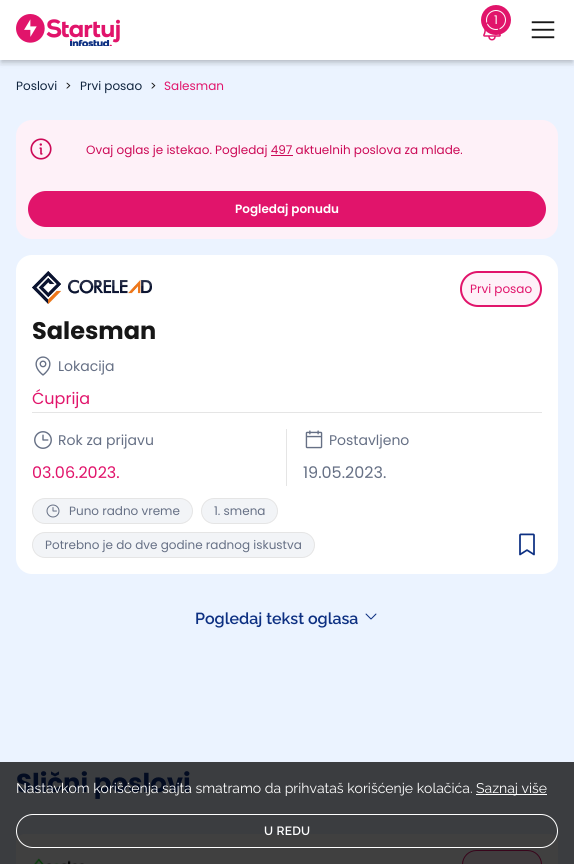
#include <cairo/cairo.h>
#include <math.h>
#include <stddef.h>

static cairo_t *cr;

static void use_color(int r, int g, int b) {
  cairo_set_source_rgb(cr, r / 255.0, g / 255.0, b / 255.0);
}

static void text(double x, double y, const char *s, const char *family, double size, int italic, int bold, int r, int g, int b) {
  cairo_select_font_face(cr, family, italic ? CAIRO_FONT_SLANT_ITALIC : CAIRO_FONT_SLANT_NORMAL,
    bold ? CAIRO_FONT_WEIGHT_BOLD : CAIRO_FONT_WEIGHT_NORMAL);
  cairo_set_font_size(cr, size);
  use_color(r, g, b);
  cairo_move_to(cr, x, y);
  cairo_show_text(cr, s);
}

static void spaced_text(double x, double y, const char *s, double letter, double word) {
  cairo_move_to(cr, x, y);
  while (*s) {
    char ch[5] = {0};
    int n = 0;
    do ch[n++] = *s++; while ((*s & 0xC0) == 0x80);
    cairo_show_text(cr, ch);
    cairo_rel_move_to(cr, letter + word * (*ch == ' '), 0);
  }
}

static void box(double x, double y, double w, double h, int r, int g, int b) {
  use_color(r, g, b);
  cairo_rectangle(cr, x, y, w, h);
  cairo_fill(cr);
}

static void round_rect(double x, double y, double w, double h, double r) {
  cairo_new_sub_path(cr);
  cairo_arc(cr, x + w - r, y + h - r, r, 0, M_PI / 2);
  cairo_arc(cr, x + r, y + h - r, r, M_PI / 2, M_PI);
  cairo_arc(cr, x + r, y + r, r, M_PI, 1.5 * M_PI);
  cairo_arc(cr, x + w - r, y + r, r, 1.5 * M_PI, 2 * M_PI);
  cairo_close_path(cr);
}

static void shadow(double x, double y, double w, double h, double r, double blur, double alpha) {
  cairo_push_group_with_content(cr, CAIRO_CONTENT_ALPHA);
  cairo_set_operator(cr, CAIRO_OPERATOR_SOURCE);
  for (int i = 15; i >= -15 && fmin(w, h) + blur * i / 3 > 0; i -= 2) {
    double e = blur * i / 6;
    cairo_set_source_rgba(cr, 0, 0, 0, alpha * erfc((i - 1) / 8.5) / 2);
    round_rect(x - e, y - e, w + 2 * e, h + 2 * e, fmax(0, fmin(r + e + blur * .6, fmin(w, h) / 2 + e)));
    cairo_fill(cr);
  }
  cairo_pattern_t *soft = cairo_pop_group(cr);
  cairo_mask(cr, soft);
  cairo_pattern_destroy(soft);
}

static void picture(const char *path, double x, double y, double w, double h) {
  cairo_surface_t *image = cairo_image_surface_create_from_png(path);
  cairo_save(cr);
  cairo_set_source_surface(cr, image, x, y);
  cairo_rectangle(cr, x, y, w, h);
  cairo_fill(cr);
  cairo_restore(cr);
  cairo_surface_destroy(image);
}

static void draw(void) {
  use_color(235, 243, 255);
  cairo_paint(cr);
  box(0, 762, 574, 102, 59, 61, 64);
  use_color(0, 0, 0);
  shadow(2, 4, 570, 56, 0, 2, 0.1);
  shadow(1, 5, 572, 58, 0, 3, 0.1);
  box(0, 0, 574, 60, 255, 255, 255);
  cairo_save(cr);
  cairo_rectangle(cr, 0, 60, 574, 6);
  cairo_clip(cr);
  use_color(0, 0, 0);
  shadow(1, 5, 572, 58, 0, 3, 0.1);
  cairo_restore(cr);
  picture("img_01.png", 16, 14, 104, 32);
  picture("img_02.png", 483, 21, 18, 20);
  use_color(225, 20, 107);
  cairo_arc(cr, 496, 20, 9, 0, 2 * M_PI);
  cairo_fill(cr);
  picture("img_03.png", 531, 21, 24, 18);
  use_color(254, 241, 248);
  round_rect(16, 120, 542, 119, 16);
  cairo_fill(cr);
  picture("img_04.png", 30, 138, 22, 22);
  box(271, 155, 22, 1, 204, 10, 87);
  use_color(225, 20, 107);
  round_rect(29, 192, 516, 34, 17);
  cairo_fill_preserve(cr);
  cairo_stroke(cr);
  use_color(255, 255, 255);
  round_rect(16, 255, 542, 319, 16);
  cairo_fill(cr);
  picture("img_05.png", 32, 271, 120, 33);
  use_color(254, 241, 248);
  round_rect(461, 272, 80, 34, 17);
  cairo_fill_preserve(cr);
  use_color(225, 20, 107);
  cairo_stroke(cr);
  picture("img_06.png", 519, 533, 16, 23);
  box(32, 412, 510, 1, 229, 229, 229);
  picture("img_07.png", 35, 356, 16, 20);
  box(286, 429, 1, 57, 229, 229, 229);
  picture("img_08.png", 34, 431, 18, 18);
  picture("img_09.png", 305, 430, 18, 19);
  use_color(242, 244, 247);
  round_rect(32.5, 498.5, 160, 25, 12.5);
  cairo_fill_preserve(cr);
  use_color(229, 229, 229);
  cairo_set_line_width(cr, 1);
  cairo_stroke(cr);
  picture("img_10.png", 46, 504, 14, 14);
  use_color(242, 244, 247);
  round_rect(201.5, 498.5, 76, 25, 12.5);
  cairo_fill_preserve(cr);
  use_color(229, 229, 229);
  cairo_stroke(cr);
  use_color(242, 244, 247);
  round_rect(32.5, 532.5, 282, 25, 12.5);
  cairo_fill_preserve(cr);
  use_color(229, 229, 229);
  cairo_stroke(cr);
  picture("img_11.png", 365, 613, 12, 7);
  use_color(64, 64, 64);
  round_rect(16, 834, 542, 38, 8);
  cairo_fill(cr);
  picture("img_12.png", 34, 858, 50, 6);
  use_color(64, 60, 62);
  round_rect(462.5, 850.5, 79, 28, 14);
  cairo_fill_preserve(cr);
  use_color(56, 5, 27);
  cairo_stroke(cr);
  box(476, 794, 71, 1, 255, 255, 255);
  round_rect(16.5, 814.5, 541, 33, 16.5);
  cairo_stroke(cr);
  text(494, 24, "1", "Poppins", 12, 0, 0, 255, 255, 255);
  cairo_new_path(cr);
  cairo_arc(cr, 496, 20, 12.5, 0, 2 * M_PI);
  use_color(225, 20, 107);
  cairo_set_line_width(cr, 5);
  cairo_stroke(cr);
  text(16, 90, "Poslovi", "Poppins", 12, 0, 0, 16, 36, 62);
  text(65, 90, ">", "Poppins", 12, 0, 0, 23, 23, 23);
  text(80, 90, "Prvi posao", "Poppins", 12, 0, 0, 16, 36, 62);
  text(150, 90, ">", "Poppins", 12, 0, 0, 23, 23, 23);
  text(164, 90, "Salesman", "Poppins", 12, 0, 0, 225, 20, 107);
  text(86, 154, "Ovaj oglas je istekao. Pogledaj 497 aktuelnih poslova za mlade.", "Poppins", 12, 0, 0, 204, 10, 87);
  text(235, 213, "Pogledaj ponudu", "Poppins SemiBold", 12, 0, 0, 255, 255, 255);
  text(470, 293, "Prvi posao", "Poppins", 12, 0, 0, 225, 20, 107);
  text(32, 339, "Salesman", "Poppins", 24, 0, 1, 23, 23, 23);
  text(58, 371, "Lokacija", "Poppins", 14, 0, 0, 102, 112, 133);
  text(32, 404, "Ćuprija", "Poppins", 16, 0, 0, 225, 20, 107);
  text(58, 445, "Rok za prijavu", "Poppins", 14, 0, 0, 102, 112, 133);
  text(32, 478, "03.06.2023.", "Poppins", 16, 0, 0, 225, 20, 107);
  text(329, 445, "Postavljeno", "Poppins", 14, 0, 0, 102, 112, 133);
  text(303, 478, "19.05.2023.", "Poppins", 16, 0, 0, 102, 112, 133);
  text(69, 515, "Puno radno vreme", "Poppins", 12, 0, 0, 102, 112, 133);
  text(214, 515, "1. smena", "Poppins", 12, 0, 0, 102, 112, 133);
  text(45, 549, "Potrebno je do dve godine radnog iskustva", "Poppins", 12, 0, 0, 102, 112, 133);
  text(195, 624, "Pogledaj tekst oglasa", "Raleway SemiBold", 16, 0, 0, 13, 48, 130);
  text(16, 792, "Slični poslovi", "Poppins", 26, 0, 1, 3, 12, 33);
  text(16, 793, "Nastavkom korišćenja sajta smatramo da prihvataš korišćenje kolačića.", "Raleway", 14, 0, 0, 255, 255, 255);
  text(476, 793, "Saznaj više", "Raleway", 14, 0, 0, 255, 255, 255);
  cairo_select_font_face(cr, "Raleway SemiBold", CAIRO_FONT_SLANT_NORMAL, CAIRO_FONT_WEIGHT_NORMAL);
  cairo_set_font_size(cr, 12);
  spaced_text(264, 835, "U REDU", 0.25, 0);
}

int main(void) {
  cairo_surface_t *surface = cairo_image_surface_create(CAIRO_FORMAT_RGB24, 574, 864);
  cr = cairo_create(surface);
  cairo_font_options_t *options = cairo_font_options_create();
  cairo_font_options_set_hint_metrics(options, CAIRO_HINT_METRICS_OFF);
  cairo_font_options_set_hint_style(options, CAIRO_HINT_STYLE_NONE);
  cairo_set_font_options(cr, options);
  cairo_set_miter_limit(cr, 4);
  draw();
  cairo_surface_write_to_png(surface, "out.png");
  cairo_font_options_destroy(options);
  cairo_destroy(cr);
  cairo_surface_destroy(surface);
  return 0;
}
